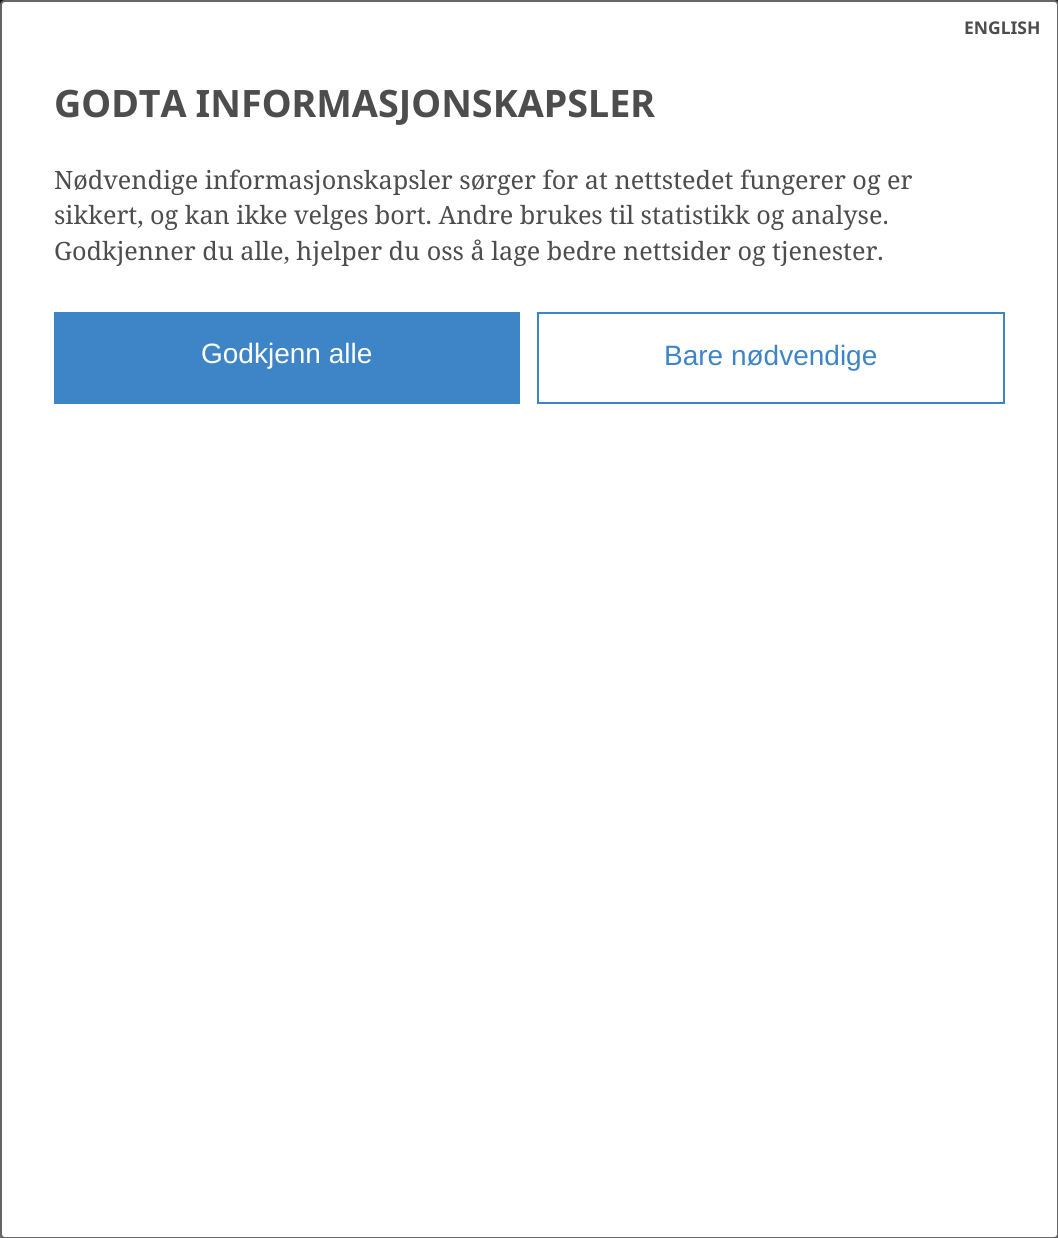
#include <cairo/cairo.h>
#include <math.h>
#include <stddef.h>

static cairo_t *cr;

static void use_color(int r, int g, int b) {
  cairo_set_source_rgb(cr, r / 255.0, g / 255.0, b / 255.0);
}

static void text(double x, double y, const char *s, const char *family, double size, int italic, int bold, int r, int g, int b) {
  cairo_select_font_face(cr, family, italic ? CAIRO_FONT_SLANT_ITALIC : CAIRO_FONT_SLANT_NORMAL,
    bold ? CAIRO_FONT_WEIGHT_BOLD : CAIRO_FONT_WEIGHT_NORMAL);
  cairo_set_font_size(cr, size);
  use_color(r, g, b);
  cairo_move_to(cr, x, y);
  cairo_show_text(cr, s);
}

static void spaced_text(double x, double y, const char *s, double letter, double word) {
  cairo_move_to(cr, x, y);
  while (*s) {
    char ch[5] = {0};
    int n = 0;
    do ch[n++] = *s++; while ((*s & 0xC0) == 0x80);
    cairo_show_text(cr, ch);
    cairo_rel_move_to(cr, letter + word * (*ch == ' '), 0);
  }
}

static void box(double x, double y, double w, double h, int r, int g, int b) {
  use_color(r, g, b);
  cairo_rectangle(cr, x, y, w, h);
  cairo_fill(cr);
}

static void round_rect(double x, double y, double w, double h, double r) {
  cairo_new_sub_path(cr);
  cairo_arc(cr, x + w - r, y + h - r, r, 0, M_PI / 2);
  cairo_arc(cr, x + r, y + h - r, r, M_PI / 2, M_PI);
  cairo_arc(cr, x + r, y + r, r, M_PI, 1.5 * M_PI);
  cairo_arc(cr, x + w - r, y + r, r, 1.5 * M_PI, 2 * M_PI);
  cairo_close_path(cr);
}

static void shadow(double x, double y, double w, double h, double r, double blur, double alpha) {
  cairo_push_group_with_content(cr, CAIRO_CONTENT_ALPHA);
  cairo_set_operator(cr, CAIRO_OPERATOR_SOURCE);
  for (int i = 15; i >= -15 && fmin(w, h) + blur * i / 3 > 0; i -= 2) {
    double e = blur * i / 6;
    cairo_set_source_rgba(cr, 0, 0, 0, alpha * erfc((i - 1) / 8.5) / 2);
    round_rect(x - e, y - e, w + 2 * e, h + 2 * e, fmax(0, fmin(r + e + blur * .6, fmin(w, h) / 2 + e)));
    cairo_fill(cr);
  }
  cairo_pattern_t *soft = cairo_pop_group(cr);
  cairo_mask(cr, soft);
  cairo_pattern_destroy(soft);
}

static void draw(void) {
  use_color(136, 136, 136);
  cairo_paint(cr);
  box(0, 0, 1058, 5, 28, 28, 28);
  use_color(0, 0, 0);
  shadow(0, 0, 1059, 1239, 5, 9, 0.4);
  use_color(255, 255, 255);
  round_rect(1, 1, 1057, 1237, 4);
  cairo_fill_preserve(cr);
  use_color(102, 102, 102);
  cairo_stroke(cr);
  box(54, 312, 466, 92, 62, 133, 200);
  cairo_rectangle(cr, 538, 313, 466, 90);
  cairo_stroke(cr);
  text(964, 34, "ENGLISH", "Noto Sans", 17.5, 0, 1, 78, 77, 77);
  cairo_set_font_size(cr, 37.75);
  spaced_text(54, 117, "GODTA INFORMASJONSKAPSLER", 0, -1);
  text(54, 189, "Nødvendige informasjonskapsler sørger for at nettstedet fungerer og er", "Noto Serif", 25.2, 0, 0, 78, 77, 77);
  text(54, 224, "sikkert, og kan ikke velges bort. Andre brukes til statistikk og analyse.", "Noto Serif", 25.2, 0, 0, 78, 77, 77);
  text(54, 260, "Godkjenner du alle, hjelper du oss å lage bedre nettsider og tjenester.", "Noto Serif", 25.2, 0, 0, 78, 77, 77);
  text(201, 363, "Godkjenn alle", "Liberation Sans", 28, 0, 0, 255, 255, 255);
  text(664, 365, "Bare nødvendige", "Liberation Sans", 28, 0, 0, 62, 133, 200);
}

int main(void) {
  cairo_surface_t *surface = cairo_image_surface_create(CAIRO_FORMAT_RGB24, 1058, 1238);
  cr = cairo_create(surface);
  cairo_font_options_t *options = cairo_font_options_create();
  cairo_font_options_set_hint_metrics(options, CAIRO_HINT_METRICS_OFF);
  cairo_font_options_set_hint_style(options, CAIRO_HINT_STYLE_NONE);
  cairo_set_font_options(cr, options);
  cairo_set_miter_limit(cr, 4);
  draw();
  cairo_surface_write_to_png(surface, "out.png");
  cairo_font_options_destroy(options);
  cairo_destroy(cr);
  cairo_surface_destroy(surface);
  return 0;
}
